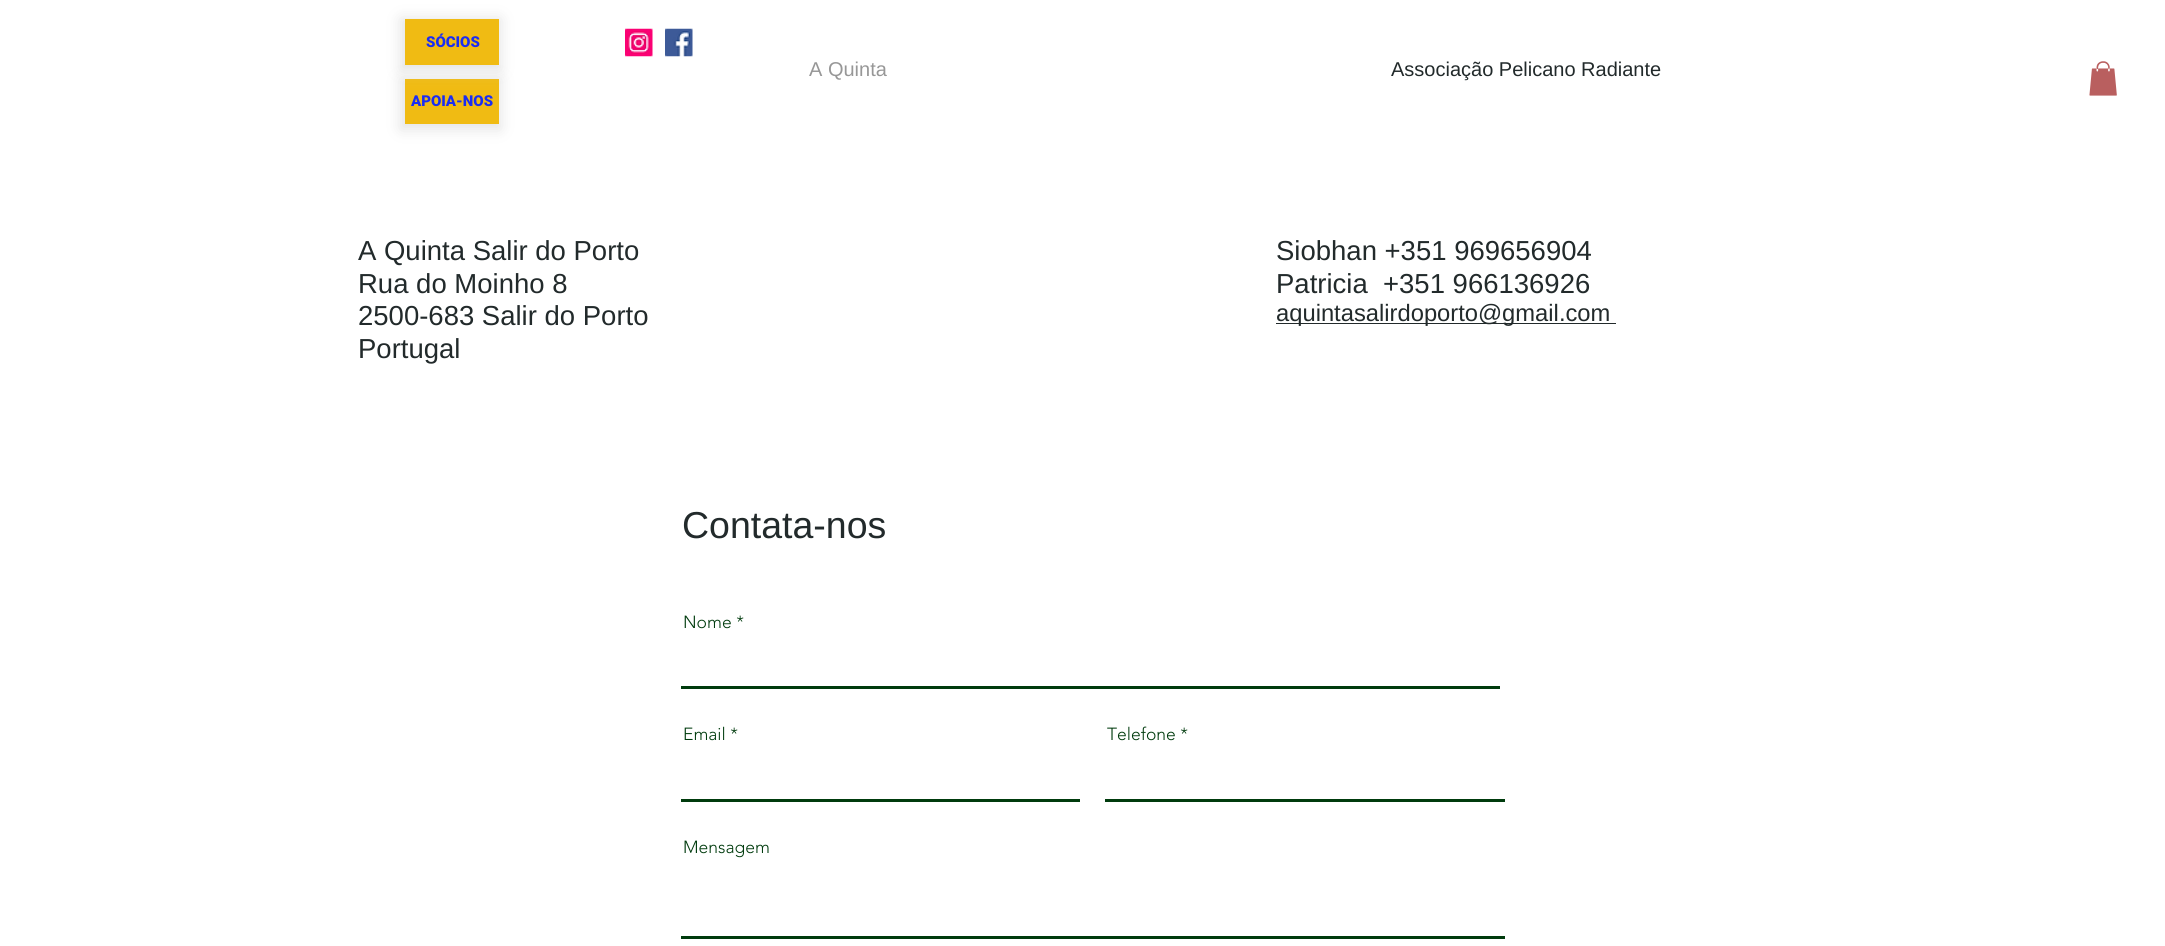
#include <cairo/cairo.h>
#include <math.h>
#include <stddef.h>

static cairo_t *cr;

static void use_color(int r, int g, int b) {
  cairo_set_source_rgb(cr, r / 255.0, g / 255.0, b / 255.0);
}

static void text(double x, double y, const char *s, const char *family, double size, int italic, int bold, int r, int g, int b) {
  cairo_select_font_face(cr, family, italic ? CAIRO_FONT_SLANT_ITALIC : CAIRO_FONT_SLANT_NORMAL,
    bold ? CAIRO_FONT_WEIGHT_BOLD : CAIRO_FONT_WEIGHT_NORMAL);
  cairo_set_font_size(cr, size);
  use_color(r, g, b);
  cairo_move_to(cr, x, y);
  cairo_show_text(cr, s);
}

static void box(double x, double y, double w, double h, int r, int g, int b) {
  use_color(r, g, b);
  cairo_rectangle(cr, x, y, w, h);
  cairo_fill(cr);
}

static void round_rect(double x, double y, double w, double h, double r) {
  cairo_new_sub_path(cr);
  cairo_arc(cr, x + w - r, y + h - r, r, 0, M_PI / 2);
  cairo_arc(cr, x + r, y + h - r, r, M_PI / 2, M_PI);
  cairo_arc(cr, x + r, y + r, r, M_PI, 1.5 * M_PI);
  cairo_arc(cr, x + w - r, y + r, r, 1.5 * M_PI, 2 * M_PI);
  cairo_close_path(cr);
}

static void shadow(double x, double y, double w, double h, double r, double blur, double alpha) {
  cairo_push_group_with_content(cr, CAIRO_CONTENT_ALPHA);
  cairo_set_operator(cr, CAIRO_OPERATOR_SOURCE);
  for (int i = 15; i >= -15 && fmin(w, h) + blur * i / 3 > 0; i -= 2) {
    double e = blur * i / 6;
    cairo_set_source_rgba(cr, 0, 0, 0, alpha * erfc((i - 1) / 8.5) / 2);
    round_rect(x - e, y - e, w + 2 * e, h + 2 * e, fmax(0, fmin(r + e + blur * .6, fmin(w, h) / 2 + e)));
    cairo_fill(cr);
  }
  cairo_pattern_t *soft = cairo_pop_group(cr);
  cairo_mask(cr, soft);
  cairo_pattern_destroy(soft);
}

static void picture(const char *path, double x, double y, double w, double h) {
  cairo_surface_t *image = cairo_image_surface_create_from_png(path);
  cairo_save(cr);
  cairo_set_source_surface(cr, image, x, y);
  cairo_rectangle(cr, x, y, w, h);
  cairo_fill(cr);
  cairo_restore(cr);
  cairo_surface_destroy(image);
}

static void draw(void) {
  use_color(255, 255, 255);
  cairo_paint(cr);
  use_color(207, 207, 207);
  shadow(401, 79, 99, 50, 0, 7, 0.6);
  box(405, 79, 94, 45, 240, 187, 19);
  use_color(207, 207, 207);
  shadow(401, 19, 99, 51, 0, 7, 0.6);
  box(405, 19, 94, 46, 240, 187, 19);
  picture("img_01.png", 625, 28, 28, 29);
  picture("img_02.png", 665, 28, 28, 29);
  picture("img_03.png", 2089, 61, 28, 35);
  box(1276, 323, 340, 1, 34, 42, 43);
  box(681, 686, 819, 3, 0, 59, 13);
  box(681, 799, 399, 3, 0, 59, 13);
  box(1105, 799, 400, 3, 0, 59, 13);
  box(681, 936, 824, 3, 0, 59, 13);
  text(426, 47, "SÓCIOS", "Roboto Black", 15, 0, 0, 26, 45, 243);
  text(809, 76, "A Quinta", "Liberation Sans", 20, 0, 0, 151, 151, 151);
  text(1391, 76, "Associação Pelicano Radiante", "Liberation Sans", 20, 0, 0, 34, 42, 43);
  text(411, 106, "APOIA-NOS", "Roboto Black", 15, 0, 0, 26, 45, 243);
  text(358, 260, "A Quinta Salir do Porto", "Liberation Sans", 27.5, 0, 0, 34, 42, 43);
  text(358, 293, "Rua do Moinho 8", "Liberation Sans", 27.5, 0, 0, 34, 42, 43);
  text(358, 325, "2500-683 Salir do Porto", "Liberation Sans", 27.5, 0, 0, 34, 42, 43);
  text(358, 358, "Portugal", "Liberation Sans", 27.5, 0, 0, 34, 42, 43);
  text(1276, 260, "Siobhan +351 969656904", "Liberation Sans", 27.5, 0, 0, 34, 42, 43);
  text(1276, 293, "Patricia", "Liberation Sans", 27.5, 0, 0, 34, 42, 43);
  text(1383, 293, "+351 966136926", "Liberation Sans", 27.5, 0, 0, 34, 42, 43);
  text(1276, 321, "aquintasalirdoporto@gmail.com", "Liberation Sans", 23.75, 0, 0, 34, 42, 43);
  text(682, 538, "Contata-nos", "Liberation Sans", 37.5, 0, 0, 34, 42, 43);
  text(683, 628, "Nome *", "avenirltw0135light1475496 Light", 17.5, 0, 0, 0, 59, 13);
  text(683, 740, "Email *", "avenirltw0135light1475496 Light", 17.5, 0, 0, 0, 59, 13);
  text(1107, 740, "Telefone *", "avenirltw0135light1475496 Light", 17.5, 0, 0, 0, 59, 13);
  text(683, 853, "Mensagem", "avenirltw0135light1475496 Light", 17.5, 0, 0, 0, 59, 13);
}

int main(void) {
  cairo_surface_t *surface = cairo_image_surface_create(CAIRO_FORMAT_RGB24, 2165, 946);
  cr = cairo_create(surface);
  cairo_font_options_t *options = cairo_font_options_create();
  cairo_font_options_set_hint_metrics(options, CAIRO_HINT_METRICS_OFF);
  cairo_font_options_set_hint_style(options, CAIRO_HINT_STYLE_NONE);
  cairo_set_font_options(cr, options);
  cairo_set_miter_limit(cr, 4);
  draw();
  cairo_surface_write_to_png(surface, "out.png");
  cairo_font_options_destroy(options);
  cairo_destroy(cr);
  cairo_surface_destroy(surface);
  return 0;
}
